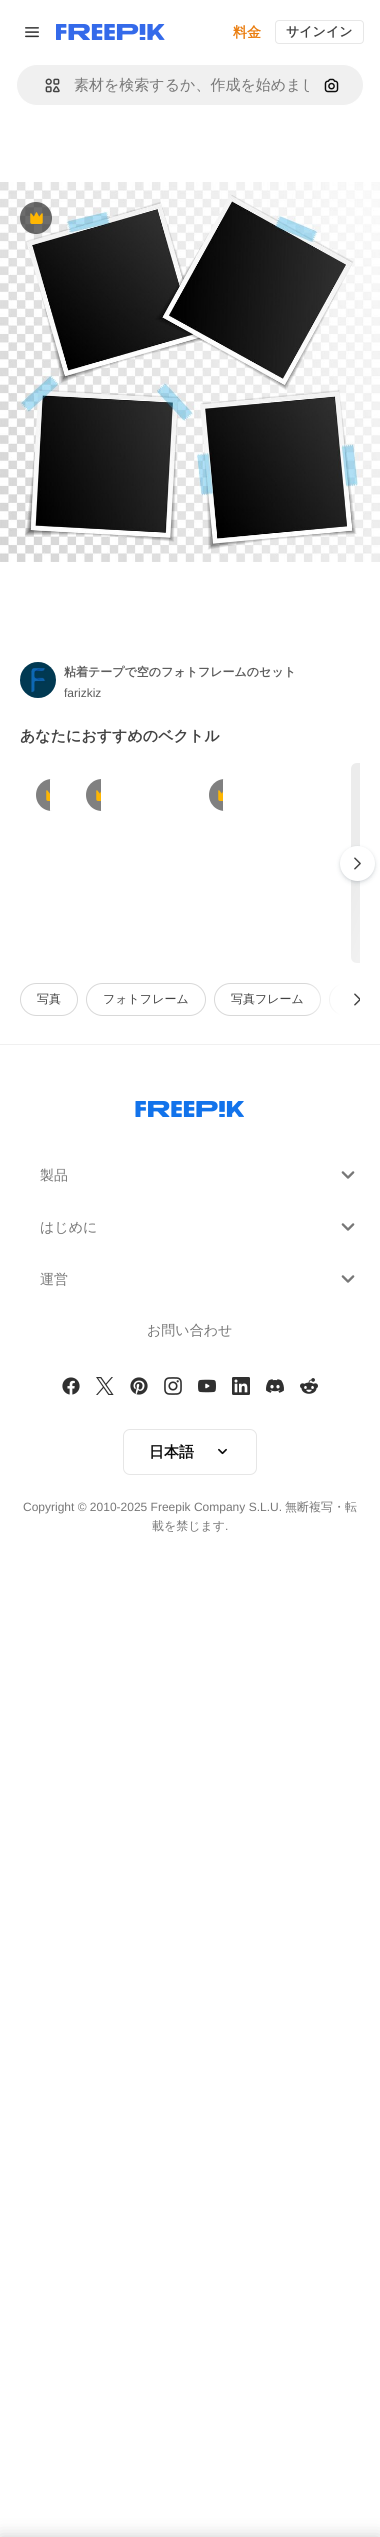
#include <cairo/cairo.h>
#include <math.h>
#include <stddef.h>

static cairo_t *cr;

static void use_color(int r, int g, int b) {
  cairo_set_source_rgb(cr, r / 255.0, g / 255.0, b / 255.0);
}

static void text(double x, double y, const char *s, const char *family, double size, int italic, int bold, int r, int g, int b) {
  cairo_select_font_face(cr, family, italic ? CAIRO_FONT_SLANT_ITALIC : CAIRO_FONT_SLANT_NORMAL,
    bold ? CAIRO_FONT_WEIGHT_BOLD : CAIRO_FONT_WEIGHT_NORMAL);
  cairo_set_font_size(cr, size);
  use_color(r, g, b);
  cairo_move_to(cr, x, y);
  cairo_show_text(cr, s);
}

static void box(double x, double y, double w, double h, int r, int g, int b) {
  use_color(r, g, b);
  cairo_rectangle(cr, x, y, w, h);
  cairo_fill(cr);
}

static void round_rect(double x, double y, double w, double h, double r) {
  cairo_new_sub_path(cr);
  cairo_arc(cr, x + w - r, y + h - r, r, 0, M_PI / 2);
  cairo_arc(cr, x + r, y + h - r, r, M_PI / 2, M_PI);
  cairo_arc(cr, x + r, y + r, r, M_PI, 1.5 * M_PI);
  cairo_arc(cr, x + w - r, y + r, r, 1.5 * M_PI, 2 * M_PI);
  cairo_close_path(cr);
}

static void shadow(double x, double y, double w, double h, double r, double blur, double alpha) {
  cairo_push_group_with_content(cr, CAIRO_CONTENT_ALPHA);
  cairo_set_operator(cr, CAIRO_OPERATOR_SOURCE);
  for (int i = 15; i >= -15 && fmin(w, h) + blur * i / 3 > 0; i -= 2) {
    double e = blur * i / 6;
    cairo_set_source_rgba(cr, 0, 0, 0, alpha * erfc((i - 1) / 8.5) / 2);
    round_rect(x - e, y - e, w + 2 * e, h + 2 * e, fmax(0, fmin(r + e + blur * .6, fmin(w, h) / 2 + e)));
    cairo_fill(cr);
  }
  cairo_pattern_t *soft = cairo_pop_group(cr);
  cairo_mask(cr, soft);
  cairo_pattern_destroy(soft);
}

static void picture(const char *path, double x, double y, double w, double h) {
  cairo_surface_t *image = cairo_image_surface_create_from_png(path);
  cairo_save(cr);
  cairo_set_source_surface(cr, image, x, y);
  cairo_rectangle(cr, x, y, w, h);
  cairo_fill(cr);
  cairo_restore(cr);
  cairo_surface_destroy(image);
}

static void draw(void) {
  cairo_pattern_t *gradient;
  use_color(255, 255, 255);
  cairo_paint(cr);
  picture("img_01.png", 25, 27, 14, 11);
  picture("img_02.png", 56, 24, 109, 16);
  round_rect(275.5, 20.5, 88, 23, 3.5);
  use_color(231, 231, 231);
  cairo_set_line_width(cr, 1);
  cairo_stroke(cr);
  use_color(240, 240, 240);
  round_rect(16.5, 64.5, 347, 41, 20.5);
  cairo_fill_preserve(cr);
  use_color(255, 255, 255);
  cairo_stroke(cr);
  picture("img_03.png", 45, 78, 15, 15);
  picture("img_04.png", 324, 78, 15, 15);
  picture("img_05.png", 0, 182, 380, 380);
  cairo_set_source_rgba(cr, 0.051, 0.051, 0.051, 0.6);
  cairo_arc(cr, 36, 218, 16, 0, 2 * M_PI);
  cairo_fill(cr);
  picture("img_06.png", 30, 212, 13, 12);
  picture("img_07.png", 20, 662, 36, 36);
  use_color(128, 128, 128);
  cairo_new_path(cr);
  cairo_move_to(cr, 52, 779);
  cairo_line_to(cr, 50, 779);
  cairo_line_to(cr, 50, 811);
  cairo_line_to(cr, 52, 811);
  cairo_curve_to(cr, 43, 811, 36, 804, 36, 795);
  cairo_curve_to(cr, 36, 786, 43, 779, 52, 779);
  cairo_close_path(cr);
  cairo_fill(cr);
  picture("img_08.png", 46, 790, 4, 11);
  cairo_new_path(cr);
  cairo_move_to(cr, 102, 779);
  cairo_line_to(cr, 101, 779);
  cairo_line_to(cr, 101, 811);
  cairo_line_to(cr, 102, 811);
  cairo_curve_to(cr, 93, 811, 86, 804, 86, 795);
  cairo_curve_to(cr, 86, 786, 93, 779, 102, 779);
  cairo_close_path(cr);
  cairo_fill(cr);
  picture("img_09.png", 96, 790, 5, 11);
  cairo_new_path(cr);
  cairo_move_to(cr, 225, 779);
  cairo_line_to(cr, 223, 779);
  cairo_line_to(cr, 223, 811);
  cairo_line_to(cr, 225, 811);
  cairo_curve_to(cr, 216, 811, 209, 804, 209, 795);
  cairo_curve_to(cr, 209, 786, 216, 779, 225, 779);
  cairo_close_path(cr);
  cairo_fill(cr);
  picture("img_09.png", 218, 790, 5, 11);
  gradient = cairo_pattern_create_linear(349, 770, 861, 956);
  cairo_pattern_add_color_stop_rgba(gradient, 0.08, 0.925, 0.925, 0.925, 1);
  cairo_pattern_add_color_stop_rgba(gradient, 0.18, 0.961, 0.961, 0.961, 1);
  cairo_pattern_add_color_stop_rgba(gradient, 0.33, 0.925, 0.925, 0.925, 1);
  cairo_set_source(cr, gradient);
  cairo_pattern_destroy(gradient);
  cairo_new_path(cr);
  cairo_move_to(cr, 357, 763);
  cairo_line_to(cr, 360, 763);
  cairo_line_to(cr, 360, 963);
  cairo_line_to(cr, 357, 963);
  cairo_curve_to(cr, 353.5, 963, 351, 960.5, 351, 957);
  cairo_line_to(cr, 351, 769);
  cairo_curve_to(cr, 351, 765.5, 353.5, 763, 357, 763);
  cairo_close_path(cr);
  cairo_fill(cr);
  use_color(55, 73, 87);
  shadow(340, 848, 35, 35, 17.5, 2.5, 0.15);
  shadow(340, 847, 35, 35, 17.5, 1, 0.1);
  use_color(255, 255, 255);
  cairo_arc(cr, 357.5, 863.5, 17.5, 0, 2 * M_PI);
  cairo_fill(cr);
  picture("img_10.png", 354, 857, 7, 13);
  round_rect(20.5, 983.5, 57, 32, 16);
  use_color(216, 216, 216);
  cairo_stroke(cr);
  round_rect(86.5, 983.5, 119, 32, 16);
  cairo_stroke(cr);
  round_rect(214.5, 983.5, 106, 32, 16);
  cairo_stroke(cr);
  cairo_save(cr);
  cairo_rectangle(cr, 20, 983, 340, 33);
  cairo_clip(cr);
  round_rect(329.5, 983.5, 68, 32, 16);
  cairo_stroke(cr);
  cairo_restore(cr);
  box(340, 983, 20, 33, 255, 255, 255);
  gradient = cairo_pattern_create_linear(340, 1000, 305, 1000);
  cairo_pattern_add_color_stop_rgba(gradient, 0, 1, 1, 1, 1);
  cairo_pattern_add_color_stop_rgba(gradient, 1, 1, 1, 1, 0);
  cairo_set_source(cr, gradient);
  cairo_pattern_destroy(gradient);
  cairo_rectangle(cr, 309, 984, 31, 31);
  cairo_fill(cr);
  picture("img_11.png", 354, 993, 6, 13);
  box(0, 1044, 380, 1, 240, 240, 240);
  picture("img_12.png", 135, 1101, 109, 16);
  picture("img_13.png", 341, 1171, 14, 8);
  picture("img_13.png", 341, 1223, 14, 8);
  picture("img_13.png", 341, 1275, 14, 8);
  picture("img_14.png", 62, 1377, 18, 18);
  picture("img_15.png", 96, 1377, 18, 18);
  picture("img_16.png", 130, 1377, 18, 18);
  picture("img_17.png", 164, 1377, 18, 18);
  picture("img_18.png", 198, 1379, 18, 14);
  picture("img_19.png", 232, 1377, 18, 18);
  picture("img_20.png", 266, 1379, 18, 14);
  picture("img_21.png", 300, 1378, 18, 16);
  round_rect(123.5, 1429.5, 133, 45, 6.5);
  use_color(230, 230, 230);
  cairo_stroke(cr);
  picture("img_22.png", 218, 1448, 9, 7);
  use_color(0, 0, 0);
  shadow(0, 2537, 380, 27, 0, 9, 0.2);
  text(233, 37, "料金", "WenQuanYi Zen Hei", 14, 0, 1, 234, 126, 17);
  text(286, 36, "サインイン", "WenQuanYi Zen Hei", 13, 0, 1, 66, 66, 66);
  cairo_save(cr);
  cairo_rectangle(cr, 74, 76, 235, 19);
  cairo_clip(cr);
  text(74, 90, "素材を検索するか、作成を始めまし", "WenQuanYi Zen Hei Medium", 15, 0, 0, 119, 119, 119);
  cairo_restore(cr);
  text(64, 676, "粘着テープで空のフォトフレームのセット", "WenQuanYi Zen Hei", 12, 0, 1, 92, 92, 92);
  text(64, 697, "farizkiz", "Liberation Sans", 12, 0, 0, 92, 92, 92);
  text(20, 741, "あなたにおすすめのベクトル", "WenQuanYi Zen Hei", 15, 0, 1, 66, 66, 66);
  text(37, 1003, "写真", "WenQuanYi Zen Hei Medium", 12, 0, 0, 66, 66, 66);
  text(103, 1003, "フォトフレーム", "WenQuanYi Zen Hei Medium", 12, 0, 0, 66, 66, 66);
  text(231, 1003, "写真フレーム", "WenQuanYi Zen Hei Medium", 12, 0, 0, 66, 66, 66);
  text(40, 1180, "製品", "WenQuanYi Zen Hei Medium", 14, 0, 0, 119, 119, 119);
  text(40, 1232, "はじめに", "WenQuanYi Zen Hei Medium", 14, 0, 0, 119, 119, 119);
  text(40, 1284, "運営", "WenQuanYi Zen Hei Medium", 14, 0, 0, 119, 119, 119);
  text(147, 1335, "お問い合わせ", "WenQuanYi Zen Hei Medium", 14, 0, 0, 119, 119, 119);
  text(149, 1457, "日本語", "WenQuanYi Zen Hei", 15, 0, 1, 13, 13, 13);
  text(23, 1511, "Copyright © 2010-2025 Freepik Company S.L.U.", "Liberation Sans", 12, 0, 0, 119, 119, 119);
  text(285, 1511, "無断複写・転", "WenQuanYi Zen Hei Medium", 12, 0, 0, 119, 119, 119);
  text(152, 1530, "載を禁じます", "WenQuanYi Zen Hei Medium", 12, 0, 0, 119, 119, 119);
  text(225, 1530, ".", "Liberation Sans", 12, 0, 0, 119, 119, 119);
}

int main(void) {
  cairo_surface_t *surface = cairo_image_surface_create(CAIRO_FORMAT_RGB24, 380, 2537);
  cr = cairo_create(surface);
  cairo_font_options_t *options = cairo_font_options_create();
  cairo_font_options_set_hint_metrics(options, CAIRO_HINT_METRICS_OFF);
  cairo_font_options_set_hint_style(options, CAIRO_HINT_STYLE_NONE);
  cairo_set_font_options(cr, options);
  cairo_set_miter_limit(cr, 4);
  draw();
  cairo_surface_write_to_png(surface, "out.png");
  cairo_font_options_destroy(options);
  cairo_destroy(cr);
  cairo_surface_destroy(surface);
  return 0;
}
